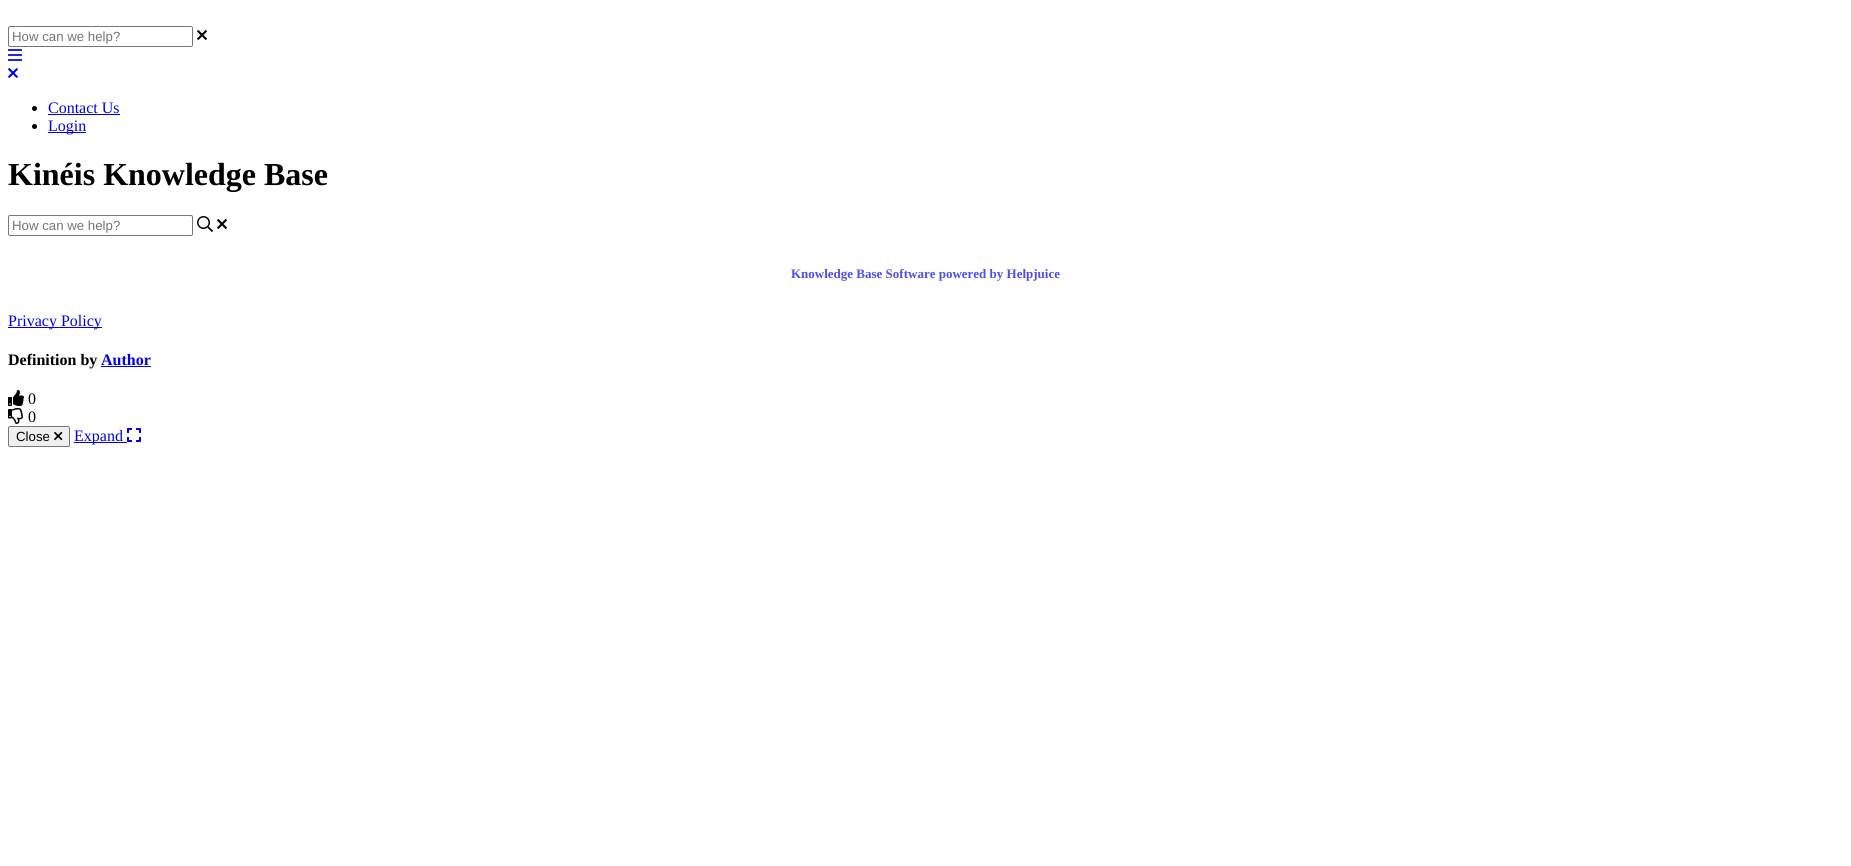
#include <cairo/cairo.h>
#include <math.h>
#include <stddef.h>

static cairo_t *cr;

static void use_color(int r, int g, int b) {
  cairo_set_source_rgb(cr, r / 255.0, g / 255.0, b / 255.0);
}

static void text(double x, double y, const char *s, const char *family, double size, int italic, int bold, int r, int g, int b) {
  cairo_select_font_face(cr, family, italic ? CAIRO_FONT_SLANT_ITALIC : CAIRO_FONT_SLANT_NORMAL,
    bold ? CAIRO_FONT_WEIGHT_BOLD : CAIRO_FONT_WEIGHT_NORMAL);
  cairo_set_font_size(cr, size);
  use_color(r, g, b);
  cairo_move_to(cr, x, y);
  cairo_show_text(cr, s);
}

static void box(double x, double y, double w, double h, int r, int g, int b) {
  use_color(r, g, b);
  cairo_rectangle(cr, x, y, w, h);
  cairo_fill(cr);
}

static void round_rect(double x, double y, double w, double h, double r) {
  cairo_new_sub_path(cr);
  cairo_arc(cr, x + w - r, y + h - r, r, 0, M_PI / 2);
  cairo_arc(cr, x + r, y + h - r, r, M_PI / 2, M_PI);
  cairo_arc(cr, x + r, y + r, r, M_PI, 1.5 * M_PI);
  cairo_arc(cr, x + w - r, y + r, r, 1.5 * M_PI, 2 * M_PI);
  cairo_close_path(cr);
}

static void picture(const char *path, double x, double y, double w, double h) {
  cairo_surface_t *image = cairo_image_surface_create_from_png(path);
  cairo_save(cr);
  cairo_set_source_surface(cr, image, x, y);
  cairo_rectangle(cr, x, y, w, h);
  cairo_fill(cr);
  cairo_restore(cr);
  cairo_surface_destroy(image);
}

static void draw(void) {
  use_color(255, 255, 255);
  cairo_paint(cr);
  round_rect(8.5, 26.5, 184, 20, 1.5);
  use_color(118, 118, 118);
  cairo_set_line_width(cr, 1);
  cairo_stroke(cr);
  picture("img_01.png", 197, 30, 10, 10);
  picture("img_02.png", 8, 49, 14, 12);
  picture("img_03.png", 8, 68, 10, 10);
  use_color(0, 0, 0);
  cairo_arc(cr, 34.5, 108.5, 2.5, 0, 2 * M_PI);
  cairo_fill(cr);
  box(48, 114, 72, 1, 0, 0, 238);
  use_color(0, 0, 0);
  cairo_arc(cr, 34.5, 126.5, 2.5, 0, 2 * M_PI);
  cairo_fill(cr);
  box(48, 132, 38, 1, 0, 0, 238);
  round_rect(8.5, 215.5, 184, 20, 1.5);
  use_color(118, 118, 118);
  cairo_stroke(cr);
  picture("img_04.png", 197, 216, 16, 16);
  picture("img_01.png", 217, 219, 10, 10);
  box(8, 327, 94, 1, 0, 0, 238);
  box(101, 366, 50, 1, 0, 0, 238);
  picture("img_05.png", 8, 390, 16, 16);
  picture("img_06.png", 8, 408, 15, 16);
  use_color(239, 239, 239);
  round_rect(8.5, 426.5, 61, 20, 1.5);
  cairo_fill_preserve(cr);
  use_color(118, 118, 118);
  cairo_stroke(cr);
  picture("img_07.png", 54, 431, 9, 10);
  box(74, 442, 53, 1, 0, 0, 238);
  picture("img_08.png", 127, 428, 14, 14);
  text(12, 41, "How can we help?", "Liberation Sans", 13.25, 0, 0, 117, 117, 117);
  text(48, 113, "Contact Us", "Liberation Serif", 16, 0, 0, 0, 0, 238);
  text(48, 131, "Login", "Liberation Serif", 16, 0, 0, 0, 0, 238);
  text(8, 185, "Kinéis Knowledge Base", "Liberation Serif", 32, 0, 1, 0, 0, 0);
  text(12, 230, "How can we help?", "Liberation Sans", 13.25, 0, 0, 117, 117, 117);
  text(791, 278, "Knowledge Base Software powered by Helpjuice", "Liberation Serif", 13, 0, 1, 77, 77, 243);
  text(8, 326, "Privacy Policy", "Liberation Serif", 16, 0, 0, 0, 0, 238);
  text(8, 365, "Definition by", "Liberation Serif", 16, 0, 1, 0, 0, 0);
  text(101, 365, "Author", "Liberation Serif", 16, 0, 1, 0, 0, 238);
  text(28, 404, "0", "Liberation Serif", 16, 0, 0, 0, 0, 0);
  text(28, 422, "0", "Liberation Serif", 16, 0, 0, 0, 0, 0);
  text(16, 441, "Close", "Liberation Sans", 13.25, 0, 0, 0, 0, 0);
  text(74, 441, "Expand", "Liberation Serif", 16, 0, 0, 0, 0, 238);
}

int main(void) {
  cairo_surface_t *surface = cairo_image_surface_create(CAIRO_FORMAT_RGB24, 1851, 866);
  cr = cairo_create(surface);
  cairo_font_options_t *options = cairo_font_options_create();
  cairo_font_options_set_hint_metrics(options, CAIRO_HINT_METRICS_OFF);
  cairo_font_options_set_hint_style(options, CAIRO_HINT_STYLE_NONE);
  cairo_set_font_options(cr, options);
  cairo_set_miter_limit(cr, 4);
  draw();
  cairo_surface_write_to_png(surface, "out.png");
  cairo_font_options_destroy(options);
  cairo_destroy(cr);
  cairo_surface_destroy(surface);
  return 0;
}
